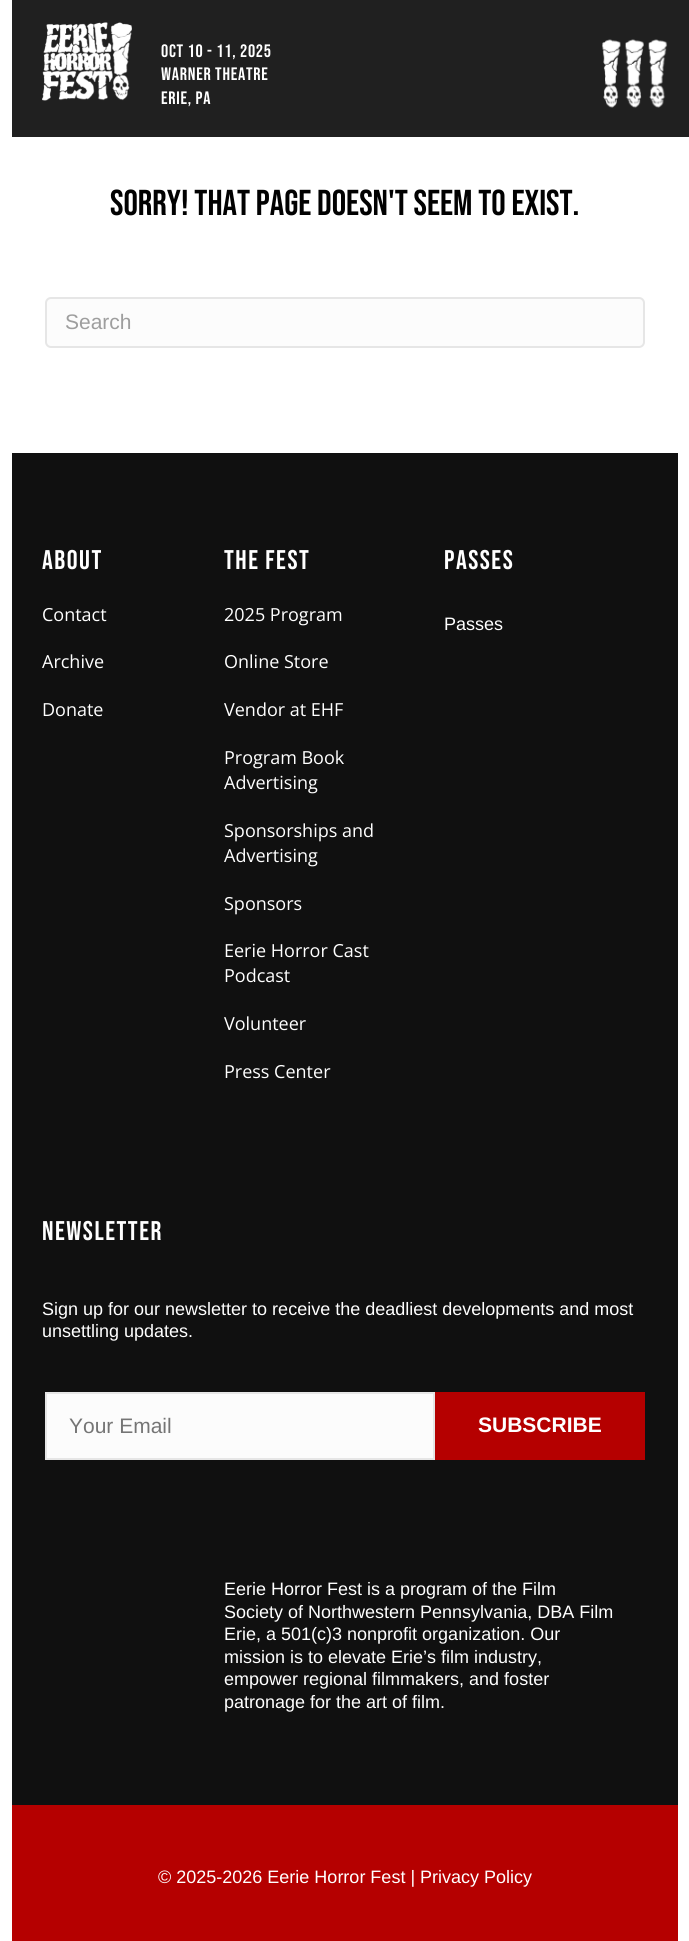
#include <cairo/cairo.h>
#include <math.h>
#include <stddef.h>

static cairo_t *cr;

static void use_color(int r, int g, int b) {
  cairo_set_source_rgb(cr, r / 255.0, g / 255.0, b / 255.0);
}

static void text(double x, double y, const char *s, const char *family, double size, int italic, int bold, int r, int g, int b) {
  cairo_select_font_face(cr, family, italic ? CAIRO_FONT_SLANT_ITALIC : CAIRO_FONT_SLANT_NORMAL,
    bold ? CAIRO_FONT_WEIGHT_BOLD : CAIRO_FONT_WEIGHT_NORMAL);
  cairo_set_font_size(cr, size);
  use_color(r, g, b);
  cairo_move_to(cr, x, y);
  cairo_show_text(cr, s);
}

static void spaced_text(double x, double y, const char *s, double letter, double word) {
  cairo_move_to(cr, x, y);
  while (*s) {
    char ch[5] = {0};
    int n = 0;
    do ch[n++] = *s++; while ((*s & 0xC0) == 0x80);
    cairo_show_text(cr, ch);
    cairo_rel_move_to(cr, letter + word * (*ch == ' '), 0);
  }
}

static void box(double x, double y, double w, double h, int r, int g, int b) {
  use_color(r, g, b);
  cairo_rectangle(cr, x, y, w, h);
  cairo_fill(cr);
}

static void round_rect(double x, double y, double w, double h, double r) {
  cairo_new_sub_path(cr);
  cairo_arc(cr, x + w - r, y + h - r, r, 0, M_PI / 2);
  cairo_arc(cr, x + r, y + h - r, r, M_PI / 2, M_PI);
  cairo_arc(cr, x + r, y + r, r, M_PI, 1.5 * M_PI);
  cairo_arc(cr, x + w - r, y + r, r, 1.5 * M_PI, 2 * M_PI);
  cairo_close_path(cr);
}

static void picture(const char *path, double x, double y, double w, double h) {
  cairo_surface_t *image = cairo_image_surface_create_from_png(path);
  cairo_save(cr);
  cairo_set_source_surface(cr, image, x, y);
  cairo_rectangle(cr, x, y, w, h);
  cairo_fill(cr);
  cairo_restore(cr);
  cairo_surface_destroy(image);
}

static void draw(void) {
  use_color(255, 255, 255);
  cairo_paint(cr);
  box(12, 0, 677, 137, 32, 32, 32);
  picture("img_01.png", 42, 22, 90, 79);
  picture("img_02.png", 602, 39, 66, 69);
  use_color(252, 252, 252);
  round_rect(46, 298, 598, 49, 5);
  cairo_fill_preserve(cr);
  use_color(230, 230, 230);
  cairo_stroke(cr);
  box(12, 453, 666, 1352, 16, 16, 16);
  use_color(252, 252, 252);
  cairo_rectangle(cr, 46, 1393, 388, 66);
  cairo_fill_preserve(cr);
  use_color(230, 230, 230);
  cairo_stroke(cr);
  box(435, 1392, 210, 68, 181, 0, 0);
  box(12, 1805, 666, 136, 181, 0, 0);
  cairo_select_font_face(cr, "Bebas Neue", CAIRO_FONT_SLANT_NORMAL, CAIRO_FONT_WEIGHT_NORMAL);
  cairo_set_font_size(cr, 18);
  use_color(255, 255, 255);
  spaced_text(161, 57, "Oct 10 - 11, 2025", 0.75, 0);
  spaced_text(161, 80, "Warner Theatre", 0.75, 0);
  spaced_text(161, 104, "Erie, PA", 0.75, 0);
  text(110, 215, "SORRY! THAT PAGE DOESN'T SEEM TO EXIST.", "Bebas Neue", 36, 0, 0, 1, 1, 1);
  text(65, 329, "Search", "Liberation Sans", 21, 0, 0, 158, 158, 158);
  cairo_select_font_face(cr, "Bebas Neue", CAIRO_FONT_SLANT_NORMAL, CAIRO_FONT_WEIGHT_NORMAL);
  cairo_set_font_size(cr, 27);
  use_color(255, 255, 255);
  spaced_text(42, 569, "ABOUT", 1.5, 0);
  text(42, 621, "Contact", "Open Sans", 18, 0, 0, 255, 255, 255);
  text(42, 668, "Archive", "Open Sans", 18, 0, 0, 255, 255, 255);
  text(42, 716, "Donate", "Open Sans", 18, 0, 0, 255, 255, 255);
  cairo_select_font_face(cr, "Bebas Neue", CAIRO_FONT_SLANT_NORMAL, CAIRO_FONT_WEIGHT_NORMAL);
  cairo_set_font_size(cr, 27);
  spaced_text(224, 569, "THE FEST", 1.5, 0);
  text(224, 621, "2025 Program", "Open Sans", 18, 0, 0, 255, 255, 255);
  text(224, 668, "Online Store", "Open Sans", 18, 0, 0, 255, 255, 255);
  text(224, 716, "Vendor at EHF", "Open Sans", 18, 0, 0, 255, 255, 255);
  text(224, 764, "Program Book", "Open Sans", 18, 0, 0, 255, 255, 255);
  text(224, 789, "Advertising", "Open Sans", 18, 0, 0, 255, 255, 255);
  text(224, 837, "Sponsorships and", "Open Sans", 18, 0, 0, 255, 255, 255);
  text(224, 862, "Advertising", "Open Sans", 18, 0, 0, 255, 255, 255);
  text(224, 910, "Sponsors", "Open Sans", 18, 0, 0, 255, 255, 255);
  text(224, 957, "Eerie Horror Cast", "Open Sans", 18, 0, 0, 255, 255, 255);
  text(224, 982, "Podcast", "Open Sans", 18, 0, 0, 255, 255, 255);
  text(224, 1030, "Volunteer", "Open Sans", 18, 0, 0, 255, 255, 255);
  text(224, 1078, "Press Center", "Open Sans", 18, 0, 0, 255, 255, 255);
  cairo_select_font_face(cr, "Bebas Neue", CAIRO_FONT_SLANT_NORMAL, CAIRO_FONT_WEIGHT_NORMAL);
  cairo_set_font_size(cr, 27);
  spaced_text(444, 569, "PASSES", 1.5, 0);
  text(444, 630, "Passes", "Liberation Sans", 18, 0, 0, 255, 255, 255);
  cairo_select_font_face(cr, "Bebas Neue", CAIRO_FONT_SLANT_NORMAL, CAIRO_FONT_WEIGHT_NORMAL);
  cairo_set_font_size(cr, 27);
  spaced_text(42, 1240, "NEWSLETTER", 1.5, 0);
  text(42, 1315, "Sign up for our newsletter to receive the deadliest developments and most", "Liberation Sans", 18, 0, 0, 255, 255, 255);
  text(42, 1337, "unsettling updates.", "Liberation Sans", 18, 0, 0, 255, 255, 255);
  text(69, 1433, "Your Email", "Liberation Sans", 21, 0, 0, 117, 117, 117);
  text(478, 1432, "SUBSCRIBE", "Liberation Sans", 21, 0, 1, 255, 255, 255);
  text(224, 1595, "Eerie Horror Fest is a program of the Film", "Liberation Sans", 18, 0, 0, 255, 255, 255);
  text(224, 1618, "Society of Northwestern Pennsylvania, DBA Film", "Liberation Sans", 18, 0, 0, 255, 255, 255);
  text(224, 1640, "Erie, a 501(c)3 nonprofit organization. Our", "Liberation Sans", 18, 0, 0, 255, 255, 255);
  text(224, 1663, "mission is to elevate Erie’s film industry,", "Liberation Sans", 18, 0, 0, 255, 255, 255);
  text(224, 1685, "empower regional filmmakers, and foster", "Liberation Sans", 18, 0, 0, 255, 255, 255);
  text(224, 1708, "patronage for the art of film.", "Liberation Sans", 18, 0, 0, 255, 255, 255);
  text(158, 1883, "© 2025-2026 Eerie Horror Fest | Privacy Policy", "Liberation Sans", 18, 0, 0, 255, 255, 255);
}

int main(void) {
  cairo_surface_t *surface = cairo_image_surface_create(CAIRO_FORMAT_RGB24, 689, 1941);
  cr = cairo_create(surface);
  cairo_font_options_t *options = cairo_font_options_create();
  cairo_font_options_set_hint_metrics(options, CAIRO_HINT_METRICS_OFF);
  cairo_font_options_set_hint_style(options, CAIRO_HINT_STYLE_NONE);
  cairo_set_font_options(cr, options);
  cairo_set_miter_limit(cr, 4);
  draw();
  cairo_surface_write_to_png(surface, "out.png");
  cairo_font_options_destroy(options);
  cairo_destroy(cr);
  cairo_surface_destroy(surface);
  return 0;
}
